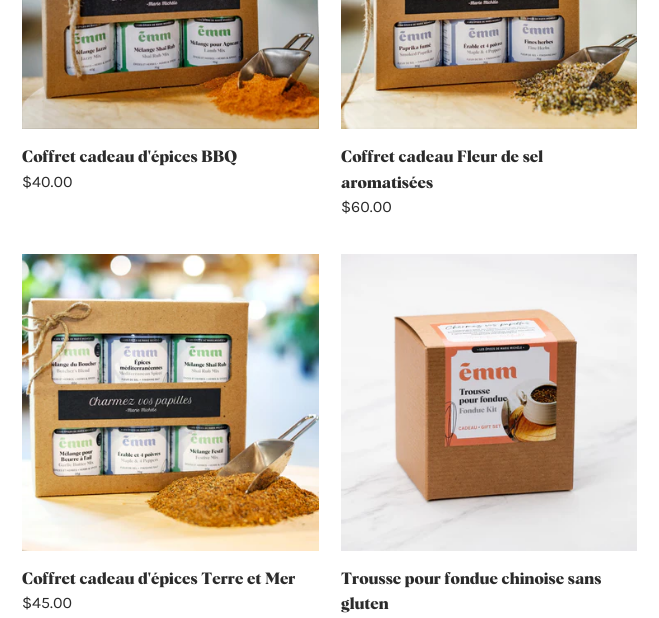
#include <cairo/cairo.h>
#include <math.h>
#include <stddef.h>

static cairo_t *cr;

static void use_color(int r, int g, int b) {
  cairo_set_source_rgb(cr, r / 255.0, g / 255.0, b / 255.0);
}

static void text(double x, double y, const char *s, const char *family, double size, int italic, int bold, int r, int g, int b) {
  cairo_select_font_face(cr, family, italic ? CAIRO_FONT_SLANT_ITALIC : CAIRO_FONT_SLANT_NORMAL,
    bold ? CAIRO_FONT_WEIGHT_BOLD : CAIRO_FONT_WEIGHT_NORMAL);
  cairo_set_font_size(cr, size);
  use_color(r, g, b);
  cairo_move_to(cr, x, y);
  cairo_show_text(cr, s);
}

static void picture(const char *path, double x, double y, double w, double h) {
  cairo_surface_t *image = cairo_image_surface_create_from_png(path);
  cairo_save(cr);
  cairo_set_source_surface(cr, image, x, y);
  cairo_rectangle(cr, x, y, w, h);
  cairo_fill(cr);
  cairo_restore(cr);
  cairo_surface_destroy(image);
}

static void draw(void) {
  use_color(255, 255, 255);
  cairo_paint(cr);
  picture("img_01.png", 22, 0, 297, 129);
  picture("img_02.png", 341, 0, 296, 129);
  picture("img_03.png", 22, 254, 297, 297);
  picture("img_04.png", 341, 254, 296, 297);
  text(22, 162, "Coffret cadeau d'épices BBQ", "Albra", 16, 0, 1, 43, 43, 43);
  text(22, 187, "$40.00", "Karla", 16, 0, 0, 43, 43, 43);
  text(341, 162, "Coffret cadeau Fleur de sel", "Albra", 16, 0, 1, 43, 43, 43);
  text(341, 188, "aromatisées", "Albra", 16, 0, 1, 43, 43, 43);
  text(341, 212, "$60.00", "Karla", 16, 0, 0, 43, 43, 43);
  text(22, 584, "Coffret cadeau d'épices Terre et Mer", "Albra", 16, 0, 1, 43, 43, 43);
  text(22, 608, "$45.00", "Karla", 16, 0, 0, 43, 43, 43);
  text(341, 584, "Trousse pour fondue chinoise sans", "Albra", 16, 0, 1, 43, 43, 43);
  text(341, 609, "gluten", "Albra", 16, 0, 1, 43, 43, 43);
}

int main(void) {
  cairo_surface_t *surface = cairo_image_surface_create(CAIRO_FORMAT_RGB24, 659, 618);
  cr = cairo_create(surface);
  cairo_font_options_t *options = cairo_font_options_create();
  cairo_font_options_set_hint_metrics(options, CAIRO_HINT_METRICS_OFF);
  cairo_font_options_set_hint_style(options, CAIRO_HINT_STYLE_NONE);
  cairo_set_font_options(cr, options);
  cairo_set_miter_limit(cr, 4);
  draw();
  cairo_surface_write_to_png(surface, "out.png");
  cairo_font_options_destroy(options);
  cairo_destroy(cr);
  cairo_surface_destroy(surface);
  return 0;
}
